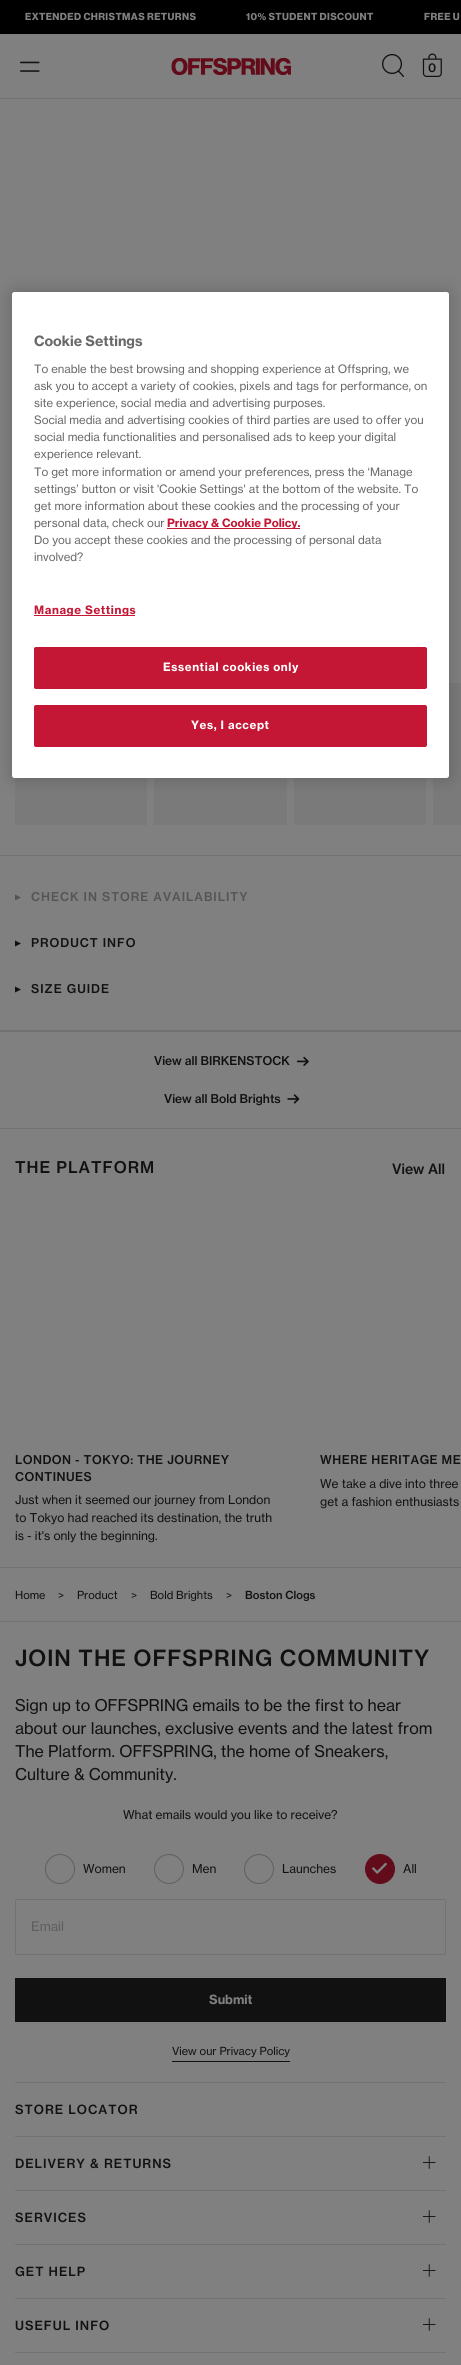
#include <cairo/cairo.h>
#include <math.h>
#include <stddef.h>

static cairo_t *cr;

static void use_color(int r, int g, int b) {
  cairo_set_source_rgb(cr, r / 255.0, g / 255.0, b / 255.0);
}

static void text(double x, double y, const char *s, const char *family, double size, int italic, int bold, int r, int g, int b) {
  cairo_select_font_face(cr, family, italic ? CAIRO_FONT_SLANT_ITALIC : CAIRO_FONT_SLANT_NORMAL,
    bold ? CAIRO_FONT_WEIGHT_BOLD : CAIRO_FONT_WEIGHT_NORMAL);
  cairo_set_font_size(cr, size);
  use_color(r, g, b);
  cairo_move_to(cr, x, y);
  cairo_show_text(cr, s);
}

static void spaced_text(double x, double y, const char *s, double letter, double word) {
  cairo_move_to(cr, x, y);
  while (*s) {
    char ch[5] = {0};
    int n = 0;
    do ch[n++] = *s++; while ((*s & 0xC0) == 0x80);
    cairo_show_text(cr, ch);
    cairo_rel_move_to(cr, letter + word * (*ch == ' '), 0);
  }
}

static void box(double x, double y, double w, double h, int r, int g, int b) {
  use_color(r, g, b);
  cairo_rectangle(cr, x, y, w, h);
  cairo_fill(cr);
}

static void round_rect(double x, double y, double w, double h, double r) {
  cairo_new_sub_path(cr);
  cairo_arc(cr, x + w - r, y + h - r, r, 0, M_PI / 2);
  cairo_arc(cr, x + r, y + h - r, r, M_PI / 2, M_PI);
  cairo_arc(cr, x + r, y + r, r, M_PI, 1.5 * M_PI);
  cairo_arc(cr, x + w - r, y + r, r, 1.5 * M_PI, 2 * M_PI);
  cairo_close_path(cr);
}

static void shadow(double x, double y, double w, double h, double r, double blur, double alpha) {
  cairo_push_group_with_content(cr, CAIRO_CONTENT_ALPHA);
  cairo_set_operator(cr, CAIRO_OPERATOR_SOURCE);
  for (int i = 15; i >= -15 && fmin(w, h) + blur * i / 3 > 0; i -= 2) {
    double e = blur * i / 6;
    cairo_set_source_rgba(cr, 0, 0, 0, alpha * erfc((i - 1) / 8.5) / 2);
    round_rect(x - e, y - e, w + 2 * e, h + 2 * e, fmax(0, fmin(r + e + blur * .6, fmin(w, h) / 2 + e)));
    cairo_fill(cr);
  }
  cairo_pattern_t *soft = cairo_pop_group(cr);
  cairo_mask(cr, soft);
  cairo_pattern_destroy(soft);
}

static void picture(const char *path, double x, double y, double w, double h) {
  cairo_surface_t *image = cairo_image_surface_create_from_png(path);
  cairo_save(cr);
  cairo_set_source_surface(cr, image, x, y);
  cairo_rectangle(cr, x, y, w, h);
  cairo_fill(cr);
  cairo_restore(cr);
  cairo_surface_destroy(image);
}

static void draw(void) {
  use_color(128, 128, 128);
  cairo_paint(cr);
  box(0, 0, 461, 34, 0, 0, 0);
  box(0, 98, 461, 1, 114, 114, 114);
  picture("img_01.png", 20, 61, 20, 11);
  picture("img_02.png", 171, 57, 120, 19);
  picture("img_03.png", 382, 53, 22, 24);
  picture("img_04.png", 422, 53, 20, 24);
  box(15, 778, 132, 47, 122, 122, 122);
  box(154, 778, 133, 47, 122, 122, 122);
  box(294, 778, 132, 47, 122, 122, 122);
  box(433, 683, 28, 142, 122, 122, 122);
  use_color(0, 0, 0);
  shadow(12, 292, 437, 486, 2.5, 9, 0.2);
  use_color(255, 255, 255);
  round_rect(12, 292, 437, 486, 2.5);
  cairo_fill(cr);
  box(167, 528, 133, 1, 195, 23, 53);
  box(34, 615, 101, 1, 195, 23, 53);
  round_rect(34.5, 647.5, 392, 41, 1.5);
  cairo_fill_preserve(cr);
  cairo_set_line_width(cr, 1);
  cairo_stroke(cr);
  round_rect(34.5, 705.5, 392, 41, 1.5);
  cairo_fill_preserve(cr);
  cairo_stroke(cr);
  box(0, 855, 461, 1, 114, 114, 114);
  box(0, 1030, 461, 2, 114, 114, 114);
  use_color(84, 84, 84);
  cairo_new_path(cr);
  cairo_move_to(cr, 21, 897.5);
  cairo_line_to(cr, 15, 900.5);
  cairo_line_to(cr, 15, 894.5);
  cairo_close_path(cr);
  cairo_fill(cr);
  use_color(17, 17, 17);
  cairo_new_path(cr);
  cairo_move_to(cr, 21, 943.5);
  cairo_line_to(cr, 15, 946.5);
  cairo_line_to(cr, 15, 940.5);
  cairo_close_path(cr);
  cairo_fill(cr);
  cairo_new_path(cr);
  cairo_move_to(cr, 21, 989.5);
  cairo_line_to(cr, 15, 992.5);
  cairo_line_to(cr, 15, 986.5);
  cairo_close_path(cr);
  cairo_fill(cr);
  picture("img_05.png", 296, 1056, 13, 10);
  picture("img_06.png", 287, 1094, 13, 10);
  box(0, 1128, 461, 1, 114, 114, 114);
  box(0, 1567, 461, 1, 114, 114, 114);
  box(0, 1621, 461, 1, 115, 115, 115);
  cairo_arc(cr, 60, 1869, 14.5, 0, 2 * M_PI);
  use_color(95, 95, 95);
  cairo_stroke(cr);
  cairo_arc(cr, 169, 1869, 14.5, 0, 2 * M_PI);
  cairo_stroke(cr);
  cairo_arc(cr, 259, 1869, 14.5, 0, 2 * M_PI);
  cairo_stroke(cr);
  use_color(98, 12, 27);
  cairo_arc(cr, 380, 1869, 14.5, 0, 2 * M_PI);
  cairo_fill_preserve(cr);
  cairo_stroke(cr);
  picture("img_07.png", 372, 1862, 15, 12);
  round_rect(15.5, 1899.5, 430, 55, 1.5);
  use_color(114, 114, 114);
  cairo_stroke(cr);
  box(15, 1978, 431, 44, 17, 17, 17);
  box(172, 2061, 118, 1, 17, 17, 17);
  box(15, 2082, 431, 1, 114, 114, 114);
  box(15, 2136, 431, 1, 114, 114, 114);
  picture("img_08.png", 423, 2156, 13, 13);
  box(15, 2190, 431, 1, 114, 114, 114);
  picture("img_08.png", 423, 2210, 13, 13);
  box(15, 2244, 431, 1, 114, 114, 114);
  picture("img_08.png", 423, 2264, 13, 13);
  box(15, 2298, 431, 1, 114, 114, 114);
  picture("img_08.png", 423, 2318, 13, 13);
  box(15, 2352, 431, 1, 114, 114, 114);
  cairo_select_font_face(cr, "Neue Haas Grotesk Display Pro", CAIRO_FONT_SLANT_NORMAL, CAIRO_FONT_WEIGHT_BOLD);
  cairo_set_font_size(cr, 10);
  use_color(128, 128, 128);
  spaced_text(25, 20, "EXTENDED CHRISTMAS RETURNS", 0.4, 0);
  spaced_text(246, 20, "10% STUDENT DISCOUNT", 0.4, 0);
  spaced_text(424, 20, "FREE U", 0.4, 0);
  text(428, 72, "0", "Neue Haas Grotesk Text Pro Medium", 12, 0, 0, 17, 17, 17);
  text(34, 346, "Cookie Settings", "Neue Haas Grotesk Text Pro", 14, 0, 1, 105, 105, 105);
  text(34, 373, "To enable the best browsing and shopping experience at Offspring, we", "Neue Haas Grotesk Text Pro", 11.4, 0, 0, 105, 105, 105);
  text(34, 390, "ask you to accept a variety of cookies, pixels and tags for performance, on", "Neue Haas Grotesk Text Pro", 11.4, 0, 0, 105, 105, 105);
  text(34, 407, "site experience, social media and advertising purposes.", "Neue Haas Grotesk Text Pro", 11.4, 0, 0, 105, 105, 105);
  text(34, 424, "Social media and advertising cookies of third parties are used to offer you", "Neue Haas Grotesk Text Pro", 11.4, 0, 0, 105, 105, 105);
  text(34, 441, "social media functionalities and personalised ads to keep your digital", "Neue Haas Grotesk Text Pro", 11.4, 0, 0, 105, 105, 105);
  text(34, 458, "experience relevant.", "Neue Haas Grotesk Text Pro", 11.4, 0, 0, 105, 105, 105);
  text(34, 476, "To get more information or amend your preferences, press the ‘Manage", "Neue Haas Grotesk Text Pro", 11.4, 0, 0, 105, 105, 105);
  text(34, 493, "settings’ button or visit 'Cookie Settings' at the bottom of the website. To", "Neue Haas Grotesk Text Pro", 11.4, 0, 0, 105, 105, 105);
  text(34, 510, "get more information about these cookies and the processing of your", "Neue Haas Grotesk Text Pro", 11.4, 0, 0, 105, 105, 105);
  text(34, 527, "personal data, check our", "Neue Haas Grotesk Text Pro", 11.4, 0, 0, 105, 105, 105);
  text(167, 527, "Privacy & Cookie Policy.", "Neue Haas Grotesk Text Pro", 11.4, 0, 1, 195, 23, 53);
  text(34, 544, "Do you accept these cookies and the processing of personal data", "Neue Haas Grotesk Text Pro", 11.4, 0, 0, 105, 105, 105);
  text(34, 561, "involved?", "Neue Haas Grotesk Text Pro", 11.4, 0, 0, 105, 105, 105);
  cairo_select_font_face(cr, "Neue Haas Grotesk Text Pro", CAIRO_FONT_SLANT_NORMAL, CAIRO_FONT_WEIGHT_BOLD);
  use_color(195, 23, 53);
  spaced_text(34, 614, "Manage Settings", 0.6, 0);
  use_color(255, 255, 255);
  spaced_text(163, 671, "Essential cookies only", 0.6, 0);
  spaced_text(191, 729, "Yes, I accept", 0.6, 0);
  cairo_select_font_face(cr, "Neue Haas Grotesk Text Pro Medium", CAIRO_FONT_SLANT_NORMAL, CAIRO_FONT_WEIGHT_NORMAL);
  cairo_set_font_size(cr, 12);
  use_color(84, 84, 84);
  spaced_text(31, 901, "CHECK IN STORE AVAILABILITY", 1, 0);
  use_color(17, 17, 17);
  spaced_text(31, 947, "PRODUCT INFO", 1, 0);
  spaced_text(31, 993, "SIZE GUIDE", 1, 0);
  text(154, 1065, "View all BIRKENSTOCK", "Neue Haas Grotesk Text Pro Medium", 12, 0, 0, 17, 17, 17);
  text(164, 1103, "View all Bold Brights", "Neue Haas Grotesk Text Pro Medium", 12, 0, 0, 17, 17, 17);
  cairo_set_font_size(cr, 16);
  spaced_text(15, 1173, "THE PLATFORM", 1, 0);
  text(392, 1174, "View All", "Neue Haas Grotesk Text Pro Medium", 14, 0, 0, 17, 17, 17);
  cairo_set_font_size(cr, 12);
  spaced_text(15, 1464, "LONDON - TOKYO: THE JOURNEY", 0.5, 0);
  spaced_text(15, 1481, "CONTINUES", 0.5, 0);
  text(15, 1504, "Just when it seemed our journey from London", "Neue Haas Grotesk Text Pro", 12, 0, 0, 17, 17, 17);
  text(15, 1522, "to Tokyo had reached its destination, the truth", "Neue Haas Grotesk Text Pro", 12, 0, 0, 17, 17, 17);
  text(15, 1540, "is - it's only the beginning.", "Neue Haas Grotesk Text Pro", 12, 0, 0, 17, 17, 17);
  cairo_select_font_face(cr, "Neue Haas Grotesk Text Pro Medium", CAIRO_FONT_SLANT_NORMAL, CAIRO_FONT_WEIGHT_NORMAL);
  spaced_text(320, 1464, "WHERE HERITAGE ME", 0.5, 0);
  text(320, 1488, "We take a dive into three", "Neue Haas Grotesk Text Pro", 12, 0, 0, 17, 17, 17);
  text(320, 1506, "get a fashion enthusiasts", "Neue Haas Grotesk Text Pro", 12, 0, 0, 17, 17, 17);
  text(15, 1599, "Home", "Neue Haas Grotesk Text Pro", 11, 0, 0, 17, 17, 17);
  text(58, 1599, ">", "Neue Haas Grotesk Text Pro", 11, 0, 0, 17, 17, 17);
  text(77, 1599, "Product", "Neue Haas Grotesk Text Pro", 11, 0, 0, 17, 17, 17);
  text(131, 1599, ">", "Neue Haas Grotesk Text Pro", 11, 0, 0, 17, 17, 17);
  text(150, 1599, "Bold Brights", "Neue Haas Grotesk Text Pro", 11, 0, 0, 17, 17, 17);
  text(226, 1599, ">", "Neue Haas Grotesk Text Pro", 11, 0, 0, 17, 17, 17);
  text(245, 1599, "Boston Clogs", "Neue Haas Grotesk Text Pro Medium", 11, 0, 0, 17, 17, 17);
  cairo_set_font_size(cr, 22);
  spaced_text(15, 1666, "JOIN THE OFFSPRING COMMUNITY", 1, 0);
  text(15, 1711, "Sign up to OFFSPRING emails to be the first to hear", "Neue Haas Grotesk Text Pro", 16, 0, 0, 17, 17, 17);
  text(15, 1734, "about our launches, exclusive events and the latest from", "Neue Haas Grotesk Text Pro", 16, 0, 0, 17, 17, 17);
  text(15, 1757, "The Platform. OFFSPRING, the home of Sneakers,", "Neue Haas Grotesk Text Pro", 16, 0, 0, 17, 17, 17);
  text(15, 1780, "Culture & Community.", "Neue Haas Grotesk Text Pro", 16, 0, 0, 17, 17, 17);
  text(123, 1819, "What emails would you like to receive?", "Neue Haas Grotesk Text Pro", 12, 0, 0, 17, 17, 17);
  text(83, 1873, "Women", "Neue Haas Grotesk Text Pro", 12, 0, 0, 17, 17, 17);
  text(192, 1873, "Men", "Neue Haas Grotesk Text Pro", 12, 0, 0, 17, 17, 17);
  text(282, 1873, "Launches", "Neue Haas Grotesk Text Pro", 12, 0, 0, 17, 17, 17);
  text(403, 1873, "All", "Neue Haas Grotesk Text Pro", 12, 0, 0, 17, 17, 17);
  text(31, 1931, "Email", "Neue Haas Grotesk Text Pro", 13, 0, 0, 95, 95, 95);
  text(209, 2004, "Submit", "Neue Haas Grotesk Text Pro", 12.5, 0, 1, 128, 128, 128);
  text(172, 2055, "View our Privacy Policy", "Neue Haas Grotesk Text Pro", 11, 0, 0, 17, 17, 17);
  cairo_select_font_face(cr, "Neue Haas Grotesk Text Pro Medium", CAIRO_FONT_SLANT_NORMAL, CAIRO_FONT_WEIGHT_NORMAL);
  cairo_set_font_size(cr, 12.5);
  spaced_text(15, 2114, "STORE LOCATOR", 1, 0);
  spaced_text(15, 2168, "DELIVERY & RETURNS", 1, 0);
  spaced_text(15, 2222, "SERVICES", 1, 0);
  spaced_text(15, 2276, "GET HELP", 1, 0);
  spaced_text(15, 2330, "USEFUL INFO", 1, 0);
}

int main(void) {
  cairo_surface_t *surface = cairo_image_surface_create(CAIRO_FORMAT_RGB24, 461, 2365);
  cr = cairo_create(surface);
  cairo_font_options_t *options = cairo_font_options_create();
  cairo_font_options_set_hint_metrics(options, CAIRO_HINT_METRICS_OFF);
  cairo_font_options_set_hint_style(options, CAIRO_HINT_STYLE_NONE);
  cairo_set_font_options(cr, options);
  cairo_set_miter_limit(cr, 4);
  draw();
  cairo_surface_write_to_png(surface, "out.png");
  cairo_font_options_destroy(options);
  cairo_destroy(cr);
  cairo_surface_destroy(surface);
  return 0;
}
